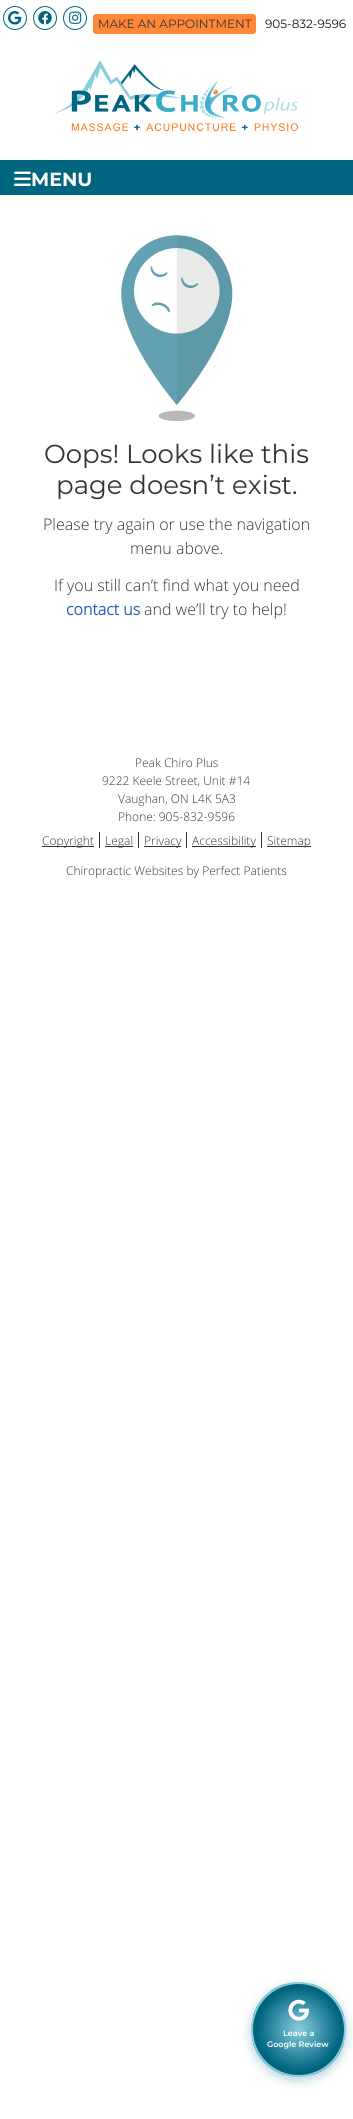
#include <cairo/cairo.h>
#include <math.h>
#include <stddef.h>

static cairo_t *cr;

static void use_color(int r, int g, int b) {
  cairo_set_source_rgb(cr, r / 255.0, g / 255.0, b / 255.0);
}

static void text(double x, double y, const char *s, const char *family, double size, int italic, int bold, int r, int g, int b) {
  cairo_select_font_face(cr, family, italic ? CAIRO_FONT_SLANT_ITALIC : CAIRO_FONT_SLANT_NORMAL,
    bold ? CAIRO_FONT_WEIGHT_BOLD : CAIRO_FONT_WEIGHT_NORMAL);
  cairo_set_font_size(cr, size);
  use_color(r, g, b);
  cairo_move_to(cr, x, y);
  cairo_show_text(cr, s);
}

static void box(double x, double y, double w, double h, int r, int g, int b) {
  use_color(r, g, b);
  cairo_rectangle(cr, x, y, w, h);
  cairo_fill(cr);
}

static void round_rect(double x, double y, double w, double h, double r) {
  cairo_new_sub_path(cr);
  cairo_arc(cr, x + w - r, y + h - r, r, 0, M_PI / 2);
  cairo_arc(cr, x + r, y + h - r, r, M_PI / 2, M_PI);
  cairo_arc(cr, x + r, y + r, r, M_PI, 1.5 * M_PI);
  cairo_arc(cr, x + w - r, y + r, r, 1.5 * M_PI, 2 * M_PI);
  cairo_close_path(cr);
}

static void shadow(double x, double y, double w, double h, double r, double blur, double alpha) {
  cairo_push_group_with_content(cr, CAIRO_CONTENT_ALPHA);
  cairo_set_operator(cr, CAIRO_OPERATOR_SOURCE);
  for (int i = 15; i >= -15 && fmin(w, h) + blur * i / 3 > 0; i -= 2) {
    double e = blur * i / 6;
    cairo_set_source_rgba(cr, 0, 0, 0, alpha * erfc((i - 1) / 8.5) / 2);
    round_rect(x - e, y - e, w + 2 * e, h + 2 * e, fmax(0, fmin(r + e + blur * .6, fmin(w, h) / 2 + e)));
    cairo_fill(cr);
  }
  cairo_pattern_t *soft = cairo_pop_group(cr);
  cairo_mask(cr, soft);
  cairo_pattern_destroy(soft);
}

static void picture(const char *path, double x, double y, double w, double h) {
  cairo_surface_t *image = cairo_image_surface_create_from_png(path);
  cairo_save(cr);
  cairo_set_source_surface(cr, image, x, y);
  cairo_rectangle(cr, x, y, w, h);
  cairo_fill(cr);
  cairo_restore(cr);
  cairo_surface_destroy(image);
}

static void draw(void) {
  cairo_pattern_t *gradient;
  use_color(255, 255, 255);
  cairo_paint(cr);
  cairo_arc(cr, 15, 18, 11.5, 0, 2 * M_PI);
  use_color(0, 102, 128);
  cairo_set_line_width(cr, 1);
  cairo_stroke(cr);
  picture("img_01.png", 8, 11, 14, 14);
  cairo_arc(cr, 45, 18, 11.5, 0, 2 * M_PI);
  cairo_stroke(cr);
  picture("img_02.png", 38, 11, 14, 14);
  cairo_arc(cr, 75, 18, 11.5, 0, 2 * M_PI);
  cairo_stroke(cr);
  picture("img_03.png", 69, 11, 13, 13);
  use_color(255, 135, 54);
  round_rect(93, 14, 163, 20, 3);
  cairo_fill(cr);
  picture("img_04.png", 53, 60, 245, 72);
  box(0, 160, 353, 35, 0, 102, 128);
  picture("img_05.png", 14, 171, 17, 15);
  picture("img_06.png", 121, 235, 112, 186);
  box(99, 832, 1, 16, 51, 51, 51);
  box(42, 846, 52, 1, 51, 51, 51);
  box(138, 832, 1, 16, 51, 51, 51);
  box(105, 846, 28, 1, 51, 51, 51);
  box(186, 832, 1, 16, 51, 51, 51);
  box(144, 846, 37, 1, 51, 51, 51);
  box(261, 832, 1, 16, 51, 51, 51);
  box(192, 846, 64, 1, 51, 51, 51);
  box(267, 846, 44, 1, 51, 51, 51);
  use_color(0, 102, 128);
  shadow(251, 1986, 95, 94, 47, 5.5, 0.3);
  cairo_save(cr);
  round_rect(251, 1982, 95, 95, 47.5);
  cairo_clip(cr);
  gradient = cairo_pattern_create_radial(299, 2029, 0, 299, 2029, 64);
  cairo_pattern_add_color_stop_rgba(gradient, 0, 0.533, 0.804, 0.871, 1);
  cairo_pattern_add_color_stop_rgba(gradient, 0.65, 0, 0.4, 0.502, 1);
  cairo_pattern_add_color_stop_rgba(gradient, 1, 0, 0.302, 0.373, 1);
  cairo_set_source(cr, gradient);
  cairo_pattern_destroy(gradient);
  cairo_rectangle(cr, 253, 1984, 91, 91);
  cairo_fill(cr);
  cairo_restore(cr);
  cairo_arc(cr, 298.5, 2029.5, 46.5, 0, 2 * M_PI);
  use_color(136, 205, 222);
  cairo_set_line_width(cr, 2);
  cairo_stroke(cr);
  picture("img_07.png", 288, 1999, 21, 22);
  text(98, 28, "MAKE AN APPOINTMENT", "Montserrat", 12, 0, 0, 51, 51, 51);
  text(265, 28, "905-832-9596", "Montserrat", 12, 0, 0, 20, 20, 20);
  text(31, 186, "MENU", "Montserrat", 19, 0, 1, 255, 255, 255);
  text(44, 463, "Oops! Looks like this", "Montserrat", 26, 0, 0, 51, 51, 51);
  text(56, 494, "page doesn’t exist.", "Montserrat", 26, 0, 0, 51, 51, 51);
  text(43, 530, "Please try again or use the navigation", "Open Sans Light", 16, 0, 0, 51, 51, 51);
  text(130, 554, "menu above.", "Open Sans Light", 16, 0, 0, 51, 51, 51);
  text(54, 591, "If you still can’t find what you need", "Open Sans Light", 16, 0, 0, 51, 51, 51);
  text(66, 615, "contact us", "Open Sans", 16, 0, 1, 42, 93, 176);
  text(144, 615, "and we’ll try to help!", "Open Sans Light", 16, 0, 0, 51, 51, 51);
  text(135, 767, "Peak Chiro Plus", "Open Sans Light", 12, 0, 0, 51, 51, 51);
  text(102, 785, "9222 Keele Street, Unit #14", "Open Sans Light", 12, 0, 0, 51, 51, 51);
  text(118, 803, "Vaughan, ON L4K 5A3", "Open Sans Light", 12, 0, 0, 51, 51, 51);
  text(118, 821, "Phone: 905-832-9596", "Open Sans Light", 12, 0, 0, 51, 51, 51);
  text(42, 845, "Copyright", "Open Sans Light", 12, 0, 0, 51, 51, 51);
  text(105, 845, "Legal", "Open Sans Light", 12, 0, 0, 51, 51, 51);
  text(144, 845, "Privacy", "Open Sans Light", 12, 0, 0, 51, 51, 51);
  text(192, 845, "Accessibility", "Open Sans Light", 12, 0, 0, 51, 51, 51);
  text(267, 845, "Sitemap", "Open Sans Light", 12, 0, 0, 51, 51, 51);
  text(66, 875, "Chiropractic Websites by Perfect Patients", "Open Sans Light", 12, 0, 0, 51, 51, 51);
  text(283, 2036, "Leave a", "Montserrat SemiBold", 8, 0, 0, 255, 255, 255);
  text(267, 2047, "Google Review", "Montserrat SemiBold", 8, 0, 0, 255, 255, 255);
}

int main(void) {
  cairo_surface_t *surface = cairo_image_surface_create(CAIRO_FORMAT_RGB24, 353, 2119);
  cr = cairo_create(surface);
  cairo_font_options_t *options = cairo_font_options_create();
  cairo_font_options_set_hint_metrics(options, CAIRO_HINT_METRICS_OFF);
  cairo_font_options_set_hint_style(options, CAIRO_HINT_STYLE_NONE);
  cairo_set_font_options(cr, options);
  cairo_set_miter_limit(cr, 4);
  draw();
  cairo_surface_write_to_png(surface, "out.png");
  cairo_font_options_destroy(options);
  cairo_destroy(cr);
  cairo_surface_destroy(surface);
  return 0;
}
